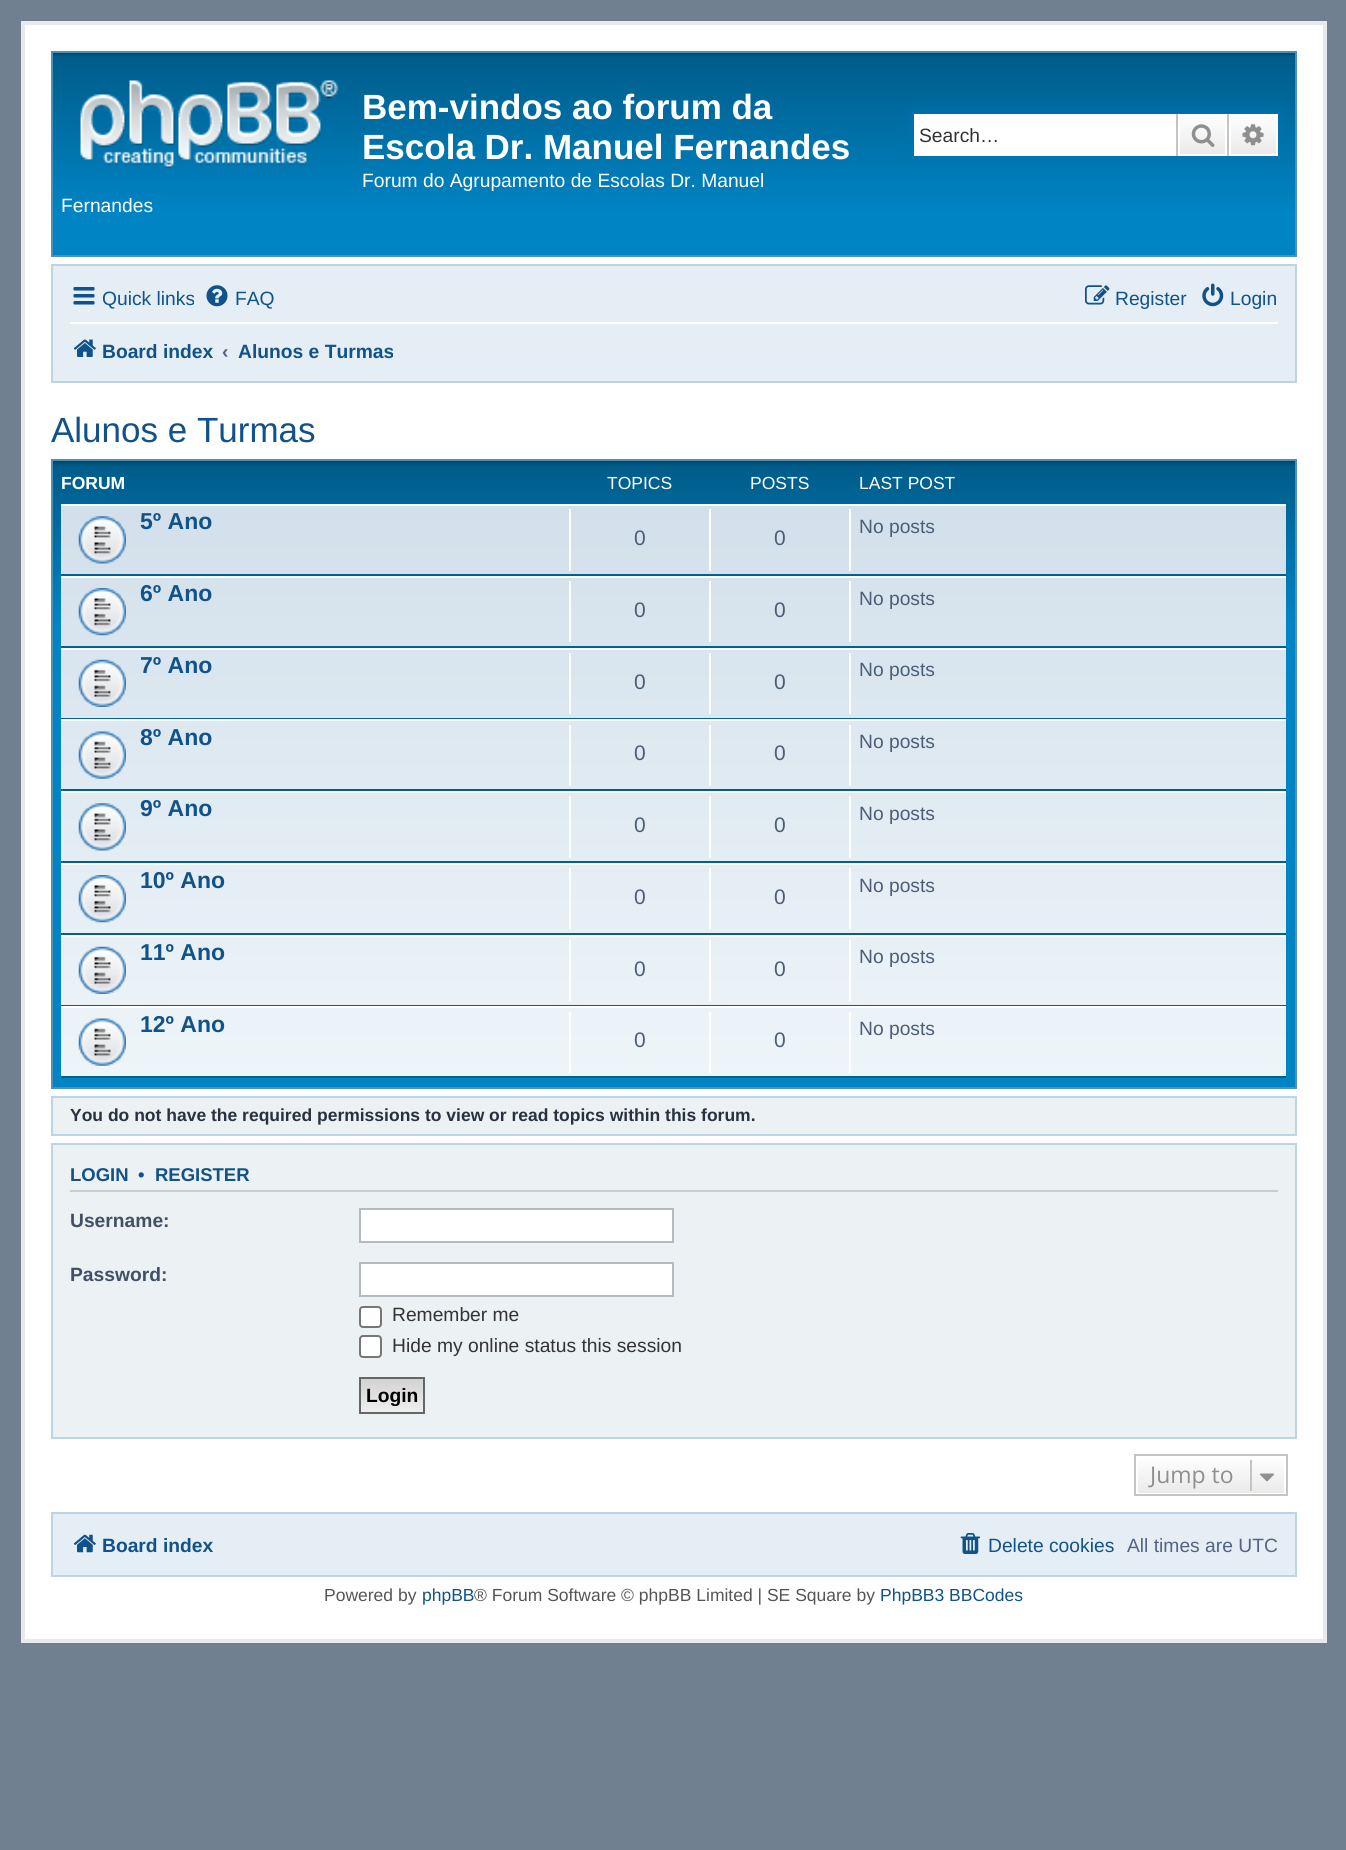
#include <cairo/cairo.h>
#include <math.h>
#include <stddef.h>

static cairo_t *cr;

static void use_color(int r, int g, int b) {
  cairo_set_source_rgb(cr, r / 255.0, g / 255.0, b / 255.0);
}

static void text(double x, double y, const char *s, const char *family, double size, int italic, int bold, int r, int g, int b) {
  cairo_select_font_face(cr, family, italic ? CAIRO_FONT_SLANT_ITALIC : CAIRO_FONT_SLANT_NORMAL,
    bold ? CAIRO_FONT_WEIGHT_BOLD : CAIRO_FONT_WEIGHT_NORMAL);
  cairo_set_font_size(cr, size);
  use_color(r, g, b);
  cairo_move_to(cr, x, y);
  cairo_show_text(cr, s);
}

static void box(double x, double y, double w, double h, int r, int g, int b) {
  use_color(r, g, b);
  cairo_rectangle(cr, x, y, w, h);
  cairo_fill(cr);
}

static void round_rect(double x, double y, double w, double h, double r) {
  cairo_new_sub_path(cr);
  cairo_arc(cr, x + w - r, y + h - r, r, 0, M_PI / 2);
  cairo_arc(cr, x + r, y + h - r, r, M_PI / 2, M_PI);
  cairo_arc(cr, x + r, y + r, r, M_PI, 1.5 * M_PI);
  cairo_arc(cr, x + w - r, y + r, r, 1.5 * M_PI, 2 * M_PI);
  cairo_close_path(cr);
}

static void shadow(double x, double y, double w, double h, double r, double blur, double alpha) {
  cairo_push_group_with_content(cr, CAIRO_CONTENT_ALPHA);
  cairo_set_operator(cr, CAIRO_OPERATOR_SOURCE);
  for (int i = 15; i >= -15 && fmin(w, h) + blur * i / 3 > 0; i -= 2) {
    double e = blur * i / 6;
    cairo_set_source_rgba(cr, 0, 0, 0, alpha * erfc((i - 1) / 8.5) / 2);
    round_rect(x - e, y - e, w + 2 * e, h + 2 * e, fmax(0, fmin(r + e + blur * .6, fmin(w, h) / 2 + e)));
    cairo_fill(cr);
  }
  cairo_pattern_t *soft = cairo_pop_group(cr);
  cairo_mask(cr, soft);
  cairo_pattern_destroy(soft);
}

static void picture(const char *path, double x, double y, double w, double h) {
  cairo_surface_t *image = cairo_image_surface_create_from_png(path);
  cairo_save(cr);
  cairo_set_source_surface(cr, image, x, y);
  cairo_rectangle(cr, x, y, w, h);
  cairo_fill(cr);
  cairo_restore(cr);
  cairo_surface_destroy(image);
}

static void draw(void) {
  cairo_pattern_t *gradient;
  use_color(112, 128, 144);
  cairo_paint(cr);
  use_color(255, 255, 255);
  cairo_rectangle(cr, 23, 23, 1302, 1618);
  cairo_fill_preserve(cr);
  use_color(230, 233, 237);
  cairo_set_line_width(cr, 4);
  cairo_stroke(cr);
  gradient = cairo_pattern_create_linear(674, 52, 674, 256);
  cairo_pattern_add_color_stop_rgba(gradient, 0, 0, 0.247, 0.369, 1);
  cairo_pattern_add_color_stop_rgba(gradient, 0.02, 0, 0.361, 0.541, 1);
  cairo_pattern_add_color_stop_rgba(gradient, 0.79, 0, 0.518, 0.769, 1);
  cairo_pattern_add_color_stop_rgba(gradient, 1, 0, 0.518, 0.769, 1);
  cairo_set_source(cr, gradient);
  cairo_pattern_destroy(gradient);
  cairo_rectangle(cr, 53, 53, 1242, 202);
  cairo_fill(cr);
  cairo_rectangle(cr, 52, 52, 1244, 204);
  use_color(79, 145, 182);
  cairo_set_line_width(cr, 2);
  cairo_stroke(cr);
  picture("img_01.png", 80, 80, 259, 89);
  use_color(0, 117, 176);
  shadow(914, 114, 364, 42, 0, 9, 1);
  box(914, 114, 262, 42, 255, 255, 255);
  gradient = cairo_pattern_create_linear(1202, 114, 1202, 156);
  cairo_pattern_add_color_stop_rgba(gradient, 0, 1, 1, 1, 1);
  cairo_pattern_add_color_stop_rgba(gradient, 1, 0.914, 0.914, 0.914, 1);
  cairo_set_source(cr, gradient);
  cairo_pattern_destroy(gradient);
  cairo_rectangle(cr, 1180, 116, 45, 38);
  cairo_fill(cr);
  cairo_rectangle(cr, 1179, 115, 47, 40);
  use_color(255, 255, 255);
  cairo_stroke(cr);
  box(1227, 114, 2, 42, 199, 195, 191);
  box(1176, 114, 2, 42, 199, 195, 191);
  picture("img_02.png", 1191, 124, 24, 23);
  gradient = cairo_pattern_create_linear(1253, 114, 1253, 156);
  cairo_pattern_add_color_stop_rgba(gradient, 0, 1, 1, 1, 1);
  cairo_pattern_add_color_stop_rgba(gradient, 1, 0.914, 0.914, 0.914, 1);
  cairo_set_source(cr, gradient);
  cairo_pattern_destroy(gradient);
  cairo_rectangle(cr, 1231, 116, 45, 38);
  cairo_fill(cr);
  cairo_rectangle(cr, 1230, 115, 47, 40);
  use_color(255, 255, 255);
  cairo_stroke(cr);
  picture("img_03.png", 1242, 124, 22, 22);
  use_color(229, 238, 245);
  cairo_rectangle(cr, 52, 265, 1244, 117);
  cairo_fill_preserve(cr);
  use_color(188, 212, 227);
  cairo_stroke(cr);
  picture("img_04.png", 73, 287, 22, 18);
  picture("img_05.png", 206, 285, 22, 22);
  picture("img_06.png", 1085, 285, 25, 20);
  picture("img_07.png", 1202, 283, 22, 24);
  box(70, 322, 1208, 2, 255, 255, 255);
  picture("img_08.png", 73, 339, 23, 18);
  gradient = cairo_pattern_create_linear(674, 460, 674, 1087);
  cairo_pattern_add_color_stop_rgba(gradient, 0, 0, 0.247, 0.369, 1);
  cairo_pattern_add_color_stop_rgba(gradient, 0.01, 0, 0.361, 0.541, 1);
  cairo_pattern_add_color_stop_rgba(gradient, 0.26, 0, 0.518, 0.769, 1);
  cairo_pattern_add_color_stop_rgba(gradient, 1, 0, 0.518, 0.769, 1);
  cairo_set_source(cr, gradient);
  cairo_pattern_destroy(gradient);
  cairo_rectangle(cr, 53, 461, 1242, 626);
  cairo_fill(cr);
  cairo_rectangle(cr, 52, 460, 1244, 628);
  use_color(79, 145, 182);
  cairo_stroke(cr);
  gradient = cairo_pattern_create_linear(674, 504, 674, 1078);
  cairo_pattern_add_color_stop_rgba(gradient, 0, 0.824, 0.878, 0.922, 1);
  cairo_pattern_add_color_stop_rgba(gradient, 1, 0.933, 0.961, 0.976, 1);
  cairo_set_source(cr, gradient);
  cairo_pattern_destroy(gradient);
  cairo_rectangle(cr, 61, 506, 1225, 570);
  cairo_fill(cr);
  box(61, 504, 1225, 2, 255, 255, 255);
  box(61, 574, 1225, 2, 0, 96, 143);
  picture("img_09.png", 78, 516, 48, 48);
  box(569, 509, 2, 62, 255, 255, 255);
  box(709, 509, 2, 62, 255, 255, 255);
  box(849, 509, 2, 62, 255, 255, 255);
  box(61, 576, 1225, 2, 255, 255, 255);
  box(61, 646, 1225, 2, 0, 96, 143);
  picture("img_10.png", 78, 588, 48, 48);
  box(569, 581, 2, 61, 255, 255, 255);
  box(709, 581, 2, 61, 255, 255, 255);
  box(849, 581, 2, 61, 255, 255, 255);
  box(61, 648, 1225, 2, 255, 255, 255);
  box(61, 718, 1225, 1, 0, 96, 143);
  picture("img_11.png", 78, 659, 48, 48);
  box(849, 653, 2, 61, 255, 255, 255);
  box(569, 653, 2, 61, 255, 255, 255);
  box(709, 653, 2, 61, 255, 255, 255);
  box(61, 719, 1225, 2, 255, 255, 255);
  box(61, 789, 1225, 2, 0, 96, 143);
  picture("img_12.png", 78, 731, 48, 48);
  box(569, 725, 2, 61, 255, 255, 255);
  box(709, 725, 2, 61, 255, 255, 255);
  box(849, 725, 2, 61, 255, 255, 255);
  box(61, 791, 1225, 2, 255, 255, 255);
  box(61, 861, 1225, 2, 0, 96, 143);
  picture("img_13.png", 78, 803, 48, 48);
  box(569, 796, 2, 62, 255, 255, 255);
  box(709, 796, 2, 62, 255, 255, 255);
  box(849, 796, 2, 62, 255, 255, 255);
  box(61, 863, 1225, 2, 255, 255, 255);
  box(61, 933, 1225, 2, 0, 96, 143);
  picture("img_14.png", 78, 875, 48, 48);
  box(569, 868, 2, 61, 255, 255, 255);
  box(709, 868, 2, 61, 255, 255, 255);
  box(849, 868, 2, 61, 255, 255, 255);
  box(61, 935, 1225, 2, 255, 255, 255);
  box(61, 1005, 1225, 1, 0, 96, 143);
  picture("img_15.png", 78, 946, 48, 48);
  box(849, 940, 2, 61, 255, 255, 255);
  box(569, 940, 2, 61, 255, 255, 255);
  box(709, 940, 2, 61, 255, 255, 255);
  box(61, 1006, 1225, 2, 255, 255, 255);
  box(61, 1076, 1225, 2, 0, 96, 143);
  picture("img_16.png", 78, 1018, 48, 48);
  box(569, 1012, 2, 61, 255, 255, 255);
  box(709, 1012, 2, 61, 255, 255, 255);
  box(849, 1012, 2, 61, 255, 255, 255);
  use_color(236, 241, 243);
  cairo_rectangle(cr, 52, 1097, 1244, 38);
  cairo_fill_preserve(cr);
  use_color(188, 212, 227);
  cairo_stroke(cr);
  use_color(236, 241, 243);
  cairo_rectangle(cr, 52, 1144, 1244, 294);
  cairo_fill_preserve(cr);
  use_color(188, 212, 227);
  cairo_stroke(cr);
  box(70, 1190, 1208, 2, 204, 204, 204);
  use_color(255, 255, 255);
  cairo_rectangle(cr, 360, 1209, 313, 33);
  cairo_fill_preserve(cr);
  use_color(180, 186, 192);
  cairo_stroke(cr);
  use_color(255, 255, 255);
  cairo_rectangle(cr, 360, 1263, 313, 33);
  cairo_fill_preserve(cr);
  use_color(180, 186, 192);
  cairo_stroke(cr);
  use_color(255, 255, 255);
  round_rect(360, 1307, 21, 20, 3);
  cairo_fill_preserve(cr);
  use_color(118, 118, 118);
  cairo_stroke(cr);
  use_color(255, 255, 255);
  round_rect(360, 1336, 21, 21, 3);
  cairo_fill_preserve(cr);
  use_color(118, 118, 118);
  cairo_stroke(cr);
  gradient = cairo_pattern_create_linear(392, 1379, 392, 1412);
  cairo_pattern_add_color_stop_rgba(gradient, 0, 0.824, 0.824, 0.824, 1);
  cairo_pattern_add_color_stop_rgba(gradient, 1, 0.937, 0.937, 0.937, 1);
  cairo_set_source(cr, gradient);
  cairo_pattern_destroy(gradient);
  cairo_rectangle(cr, 361, 1379, 62, 33);
  cairo_fill(cr);
  cairo_rectangle(cr, 360, 1378, 64, 35);
  use_color(102, 102, 102);
  cairo_stroke(cr);
  gradient = cairo_pattern_create_linear(1211, 1456, 1211, 1495);
  cairo_pattern_add_color_stop_rgba(gradient, 0, 1, 1, 1, 1);
  cairo_pattern_add_color_stop_rgba(gradient, 1, 0.914, 0.914, 0.914, 1);
  cairo_set_source(cr, gradient);
  cairo_pattern_destroy(gradient);
  cairo_rectangle(cr, 1138, 1460, 146, 33);
  cairo_fill(cr);
  cairo_rectangle(cr, 1135, 1455, 152, 40);
  use_color(199, 195, 191);
  cairo_stroke(cr);
  box(1250, 1460, 2, 31, 199, 195, 191);
  picture("img_17.png", 1260, 1473, 14, 9);
  use_color(229, 238, 245);
  cairo_rectangle(cr, 52, 1513, 1244, 63);
  cairo_fill_preserve(cr);
  use_color(188, 212, 227);
  cairo_stroke(cr);
  picture("img_18.png", 73, 1534, 23, 19);
  picture("img_19.png", 960, 1533, 20, 21);
  text(362, 119, "Bem-vindos ao forum da", "Liberation Sans", 35, 0, 1, 255, 255, 255);
  text(362, 159, "Escola Dr. Manuel Fernandes", "Liberation Sans", 35, 0, 1, 255, 255, 255);
  text(362, 187, "Forum do Agrupamento de Escolas Dr. Manuel", "Liberation Sans", 19.25, 0, 0, 255, 255, 255);
  text(61, 212, "Fernandes", "Liberation Sans", 19.25, 0, 0, 255, 255, 255);
  text(919, 142, "Search…", "Liberation Sans", 19.25, 0, 0, 51, 51, 51);
  text(102, 305, "Quick links", "Liberation Sans", 19.25, 0, 0, 16, 82, 137);
  text(235, 305, "FAQ", "Liberation Sans", 19.25, 0, 0, 16, 82, 137);
  text(1115, 305, "Register", "Liberation Sans", 19.25, 0, 0, 16, 82, 137);
  text(1230, 305, "Login", "Liberation Sans", 19.25, 0, 0, 16, 82, 137);
  text(102, 358, "Board index", "Liberation Sans", 19.25, 0, 1, 16, 82, 137);
  text(222, 358, "‹", "Liberation Sans", 19.25, 0, 1, 83, 100, 130);
  text(238, 358, "Alunos e Turmas", "Liberation Sans", 19.25, 0, 1, 16, 82, 137);
  text(51, 442, "Alunos e Turmas", "Liberation Sans", 35, 0, 0, 16, 82, 137);
  text(61, 489, "FORUM", "Liberation Sans", 17.5, 0, 1, 255, 255, 255);
  text(607, 489, "TOPICS", "Liberation Sans", 17.5, 0, 0, 255, 255, 255);
  text(750, 489, "POSTS", "Liberation Sans", 17.5, 0, 0, 255, 255, 255);
  text(859, 489, "LAST POST", "Liberation Sans", 17.5, 0, 0, 255, 255, 255);
  text(140, 529, "5º Ano", "Liberation Sans", 23, 0, 1, 16, 82, 137);
  text(634, 545, "0", "Liberation Sans", 21, 0, 0, 76, 93, 119);
  text(774, 545, "0", "Liberation Sans", 21, 0, 0, 76, 93, 119);
  text(859, 533, "No posts", "Liberation Sans", 19.25, 0, 0, 76, 93, 119);
  text(140, 601, "6º Ano", "Liberation Sans", 23, 0, 1, 16, 82, 137);
  text(634, 617, "0", "Liberation Sans", 21, 0, 0, 76, 93, 119);
  text(774, 617, "0", "Liberation Sans", 21, 0, 0, 76, 93, 119);
  text(859, 605, "No posts", "Liberation Sans", 19.25, 0, 0, 76, 93, 119);
  text(140, 673, "7º Ano", "Liberation Sans", 23, 0, 1, 16, 82, 137);
  text(859, 676, "No posts", "Liberation Sans", 19.25, 0, 0, 76, 93, 119);
  text(634, 689, "0", "Liberation Sans", 21, 0, 0, 76, 93, 119);
  text(774, 689, "0", "Liberation Sans", 21, 0, 0, 76, 93, 119);
  text(140, 745, "8º Ano", "Liberation Sans", 23, 0, 1, 16, 82, 137);
  text(634, 760, "0", "Liberation Sans", 21, 0, 0, 76, 93, 119);
  text(774, 760, "0", "Liberation Sans", 21, 0, 0, 76, 93, 119);
  text(859, 748, "No posts", "Liberation Sans", 19.25, 0, 0, 76, 93, 119);
  text(140, 816, "9º Ano", "Liberation Sans", 23, 0, 1, 16, 82, 137);
  text(634, 832, "0", "Liberation Sans", 21, 0, 0, 76, 93, 119);
  text(774, 832, "0", "Liberation Sans", 21, 0, 0, 76, 93, 119);
  text(859, 820, "No posts", "Liberation Sans", 19.25, 0, 0, 76, 93, 119);
  text(140, 888, "10º Ano", "Liberation Sans", 23, 0, 1, 16, 82, 137);
  text(634, 904, "0", "Liberation Sans", 21, 0, 0, 76, 93, 119);
  text(774, 904, "0", "Liberation Sans", 21, 0, 0, 76, 93, 119);
  text(859, 892, "No posts", "Liberation Sans", 19.25, 0, 0, 76, 93, 119);
  text(140, 960, "11º Ano", "Liberation Sans", 23, 0, 1, 16, 82, 137);
  text(859, 963, "No posts", "Liberation Sans", 19.25, 0, 0, 76, 93, 119);
  text(634, 976, "0", "Liberation Sans", 21, 0, 0, 76, 93, 119);
  text(774, 976, "0", "Liberation Sans", 21, 0, 0, 76, 93, 119);
  text(140, 1032, "12º Ano", "Liberation Sans", 23, 0, 1, 16, 82, 137);
  text(634, 1047, "0", "Liberation Sans", 21, 0, 0, 76, 93, 119);
  text(774, 1047, "0", "Liberation Sans", 21, 0, 0, 76, 93, 119);
  text(859, 1035, "No posts", "Liberation Sans", 19.25, 0, 0, 76, 93, 119);
  text(70, 1121, "You do not have the required permissions to view or read topics within this forum.", "Liberation Sans", 17.5, 0, 1, 40, 49, 63);
  text(70, 1181, "LOGIN", "Liberation Sans", 18.5, 0, 1, 16, 82, 137);
  text(138, 1181, "•", "Liberation Sans", 18.5, 0, 1, 17, 80, 152);
  text(155, 1181, "REGISTER", "Liberation Sans", 18.5, 0, 1, 16, 82, 137);
  text(70, 1227, "Username:", "Liberation Sans", 19.25, 0, 1, 66, 80, 103);
  text(70, 1281, "Password:", "Liberation Sans", 19.25, 0, 1, 66, 80, 103);
  text(392, 1321, "Remember me", "Liberation Sans", 19.25, 0, 0, 51, 51, 51);
  text(392, 1352, "Hide my online status this session", "Liberation Sans", 19.25, 0, 0, 51, 51, 51);
  text(366, 1402, "Login", "Liberation Sans", 19.25, 0, 1, 0, 0, 0);
  text(1150, 1483, "Jump to", "Open Sans", 23, 0, 0, 143, 143, 143);
  text(102, 1552, "Board index", "Liberation Sans", 19.25, 0, 1, 16, 82, 137);
  text(988, 1552, "Delete cookies", "Liberation Sans", 19.25, 0, 0, 16, 82, 137);
  text(1127, 1552, "All times are UTC", "Liberation Sans", 19.25, 0, 0, 83, 100, 130);
  text(324, 1601, "Powered by", "Liberation Sans", 17.5, 0, 0, 85, 85, 85);
  text(422, 1601, "phpBB", "Liberation Sans", 17.5, 0, 0, 16, 82, 137);
  text(474, 1601, "® Forum Software © phpBB Limited | SE Square by", "Liberation Sans", 17.5, 0, 0, 85, 85, 85);
  text(880, 1601, "PhpBB3 BBCodes", "Liberation Sans", 17.5, 0, 0, 16, 82, 137);
}

int main(void) {
  cairo_surface_t *surface = cairo_image_surface_create(CAIRO_FORMAT_RGB24, 1346, 1850);
  cr = cairo_create(surface);
  cairo_font_options_t *options = cairo_font_options_create();
  cairo_font_options_set_hint_metrics(options, CAIRO_HINT_METRICS_OFF);
  cairo_font_options_set_hint_style(options, CAIRO_HINT_STYLE_NONE);
  cairo_set_font_options(cr, options);
  cairo_set_miter_limit(cr, 4);
  draw();
  cairo_surface_write_to_png(surface, "out.png");
  cairo_font_options_destroy(options);
  cairo_destroy(cr);
  cairo_surface_destroy(surface);
  return 0;
}
